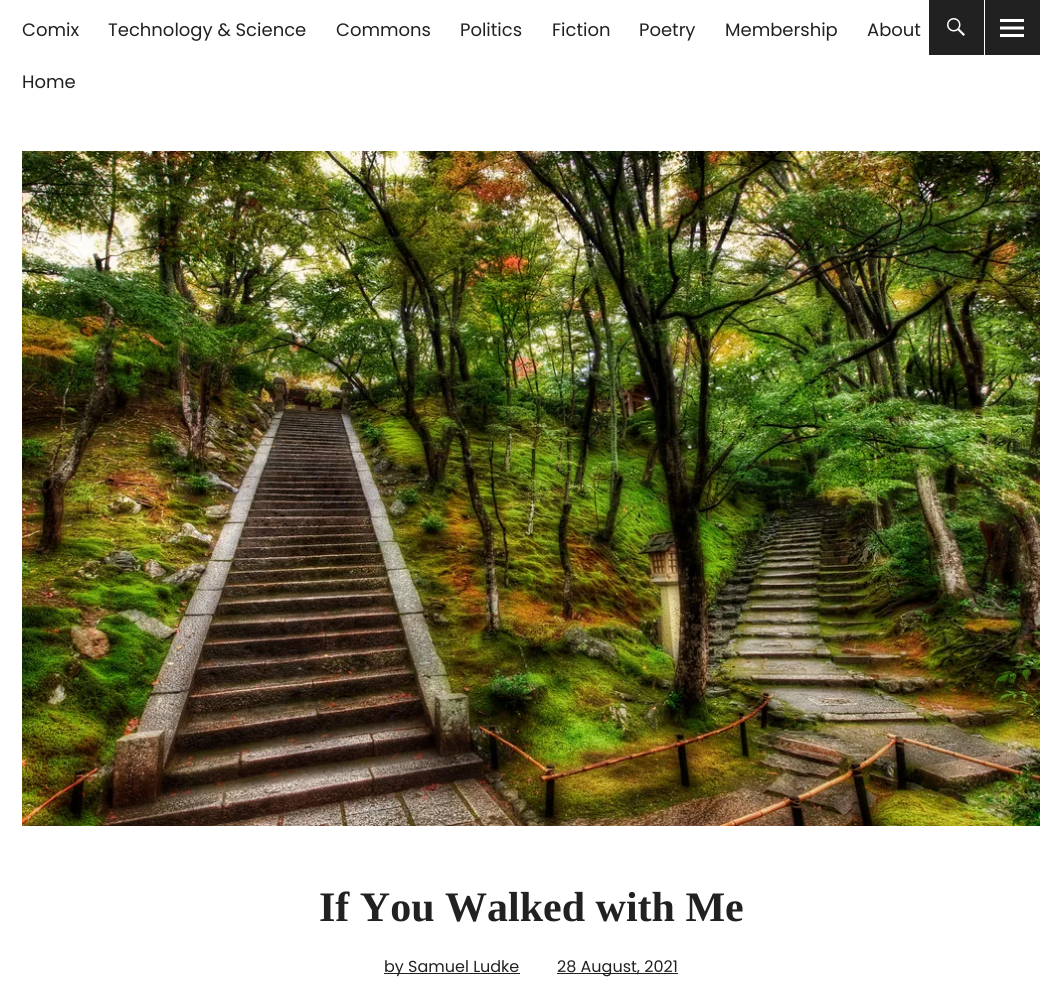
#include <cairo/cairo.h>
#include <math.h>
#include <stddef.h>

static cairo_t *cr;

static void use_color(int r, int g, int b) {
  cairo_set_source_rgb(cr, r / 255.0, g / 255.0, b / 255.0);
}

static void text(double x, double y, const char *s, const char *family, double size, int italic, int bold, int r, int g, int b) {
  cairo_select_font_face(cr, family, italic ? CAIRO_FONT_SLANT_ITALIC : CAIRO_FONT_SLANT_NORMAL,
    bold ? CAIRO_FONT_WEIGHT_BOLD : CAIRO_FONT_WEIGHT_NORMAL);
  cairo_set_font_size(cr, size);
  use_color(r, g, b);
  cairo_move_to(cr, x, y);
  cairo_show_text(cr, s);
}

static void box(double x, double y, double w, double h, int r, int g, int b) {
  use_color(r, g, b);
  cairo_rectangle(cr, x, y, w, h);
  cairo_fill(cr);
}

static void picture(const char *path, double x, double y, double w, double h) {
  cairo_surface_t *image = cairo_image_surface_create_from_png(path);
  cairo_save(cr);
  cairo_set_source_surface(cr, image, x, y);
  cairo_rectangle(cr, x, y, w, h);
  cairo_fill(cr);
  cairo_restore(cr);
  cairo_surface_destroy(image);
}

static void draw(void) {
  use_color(255, 255, 255);
  cairo_paint(cr);
  cairo_set_source_rgba(cr, 0, 0, 0, 0.87);
  cairo_rectangle(cr, 929, 0, 55, 55);
  cairo_fill(cr);
  picture("img_01.png", 947, 18, 18, 18);
  box(985, 0, 55, 55, 33, 33, 33);
  picture("img_02.png", 1000, 19, 24, 18);
  picture("img_03.png", 22, 151, 1018, 675);
  box(384, 973, 136, 1, 33, 33, 33);
  box(557, 973, 121, 1, 33, 33, 33);
  text(22, 36, "Comix", "Poppins", 18, 0, 0, 33, 33, 33);
  text(108, 36, "Technology & Science", "Poppins", 18, 0, 0, 33, 33, 33);
  text(336, 36, "Commons", "Poppins", 18, 0, 0, 33, 33, 33);
  text(460, 36, "Politics", "Poppins", 18, 0, 0, 33, 33, 33);
  text(552, 36, "Fiction", "Poppins", 18, 0, 0, 33, 33, 33);
  text(639, 36, "Poetry", "Poppins", 18, 0, 0, 33, 33, 33);
  text(725, 36, "Membership", "Poppins", 18, 0, 0, 33, 33, 33);
  text(867, 36, "About", "Poppins", 18, 0, 0, 33, 33, 33);
  text(22, 88, "Home", "Poppins", 18, 0, 0, 33, 33, 33);
  text(319, 921, "If You Walked with Me", "Liberation Serif", 42, 0, 1, 33, 33, 33);
  text(384, 972, "by Samuel Ludke", "Poppins", 16, 0, 0, 33, 33, 33);
  text(557, 972, "28 August, 2021", "Poppins", 16, 0, 0, 33, 33, 33);
}

int main(void) {
  cairo_surface_t *surface = cairo_image_surface_create(CAIRO_FORMAT_RGB24, 1062, 999);
  cr = cairo_create(surface);
  cairo_font_options_t *options = cairo_font_options_create();
  cairo_font_options_set_hint_metrics(options, CAIRO_HINT_METRICS_OFF);
  cairo_font_options_set_hint_style(options, CAIRO_HINT_STYLE_NONE);
  cairo_set_font_options(cr, options);
  cairo_set_miter_limit(cr, 4);
  draw();
  cairo_surface_write_to_png(surface, "out.png");
  cairo_font_options_destroy(options);
  cairo_destroy(cr);
  cairo_surface_destroy(surface);
  return 0;
}
